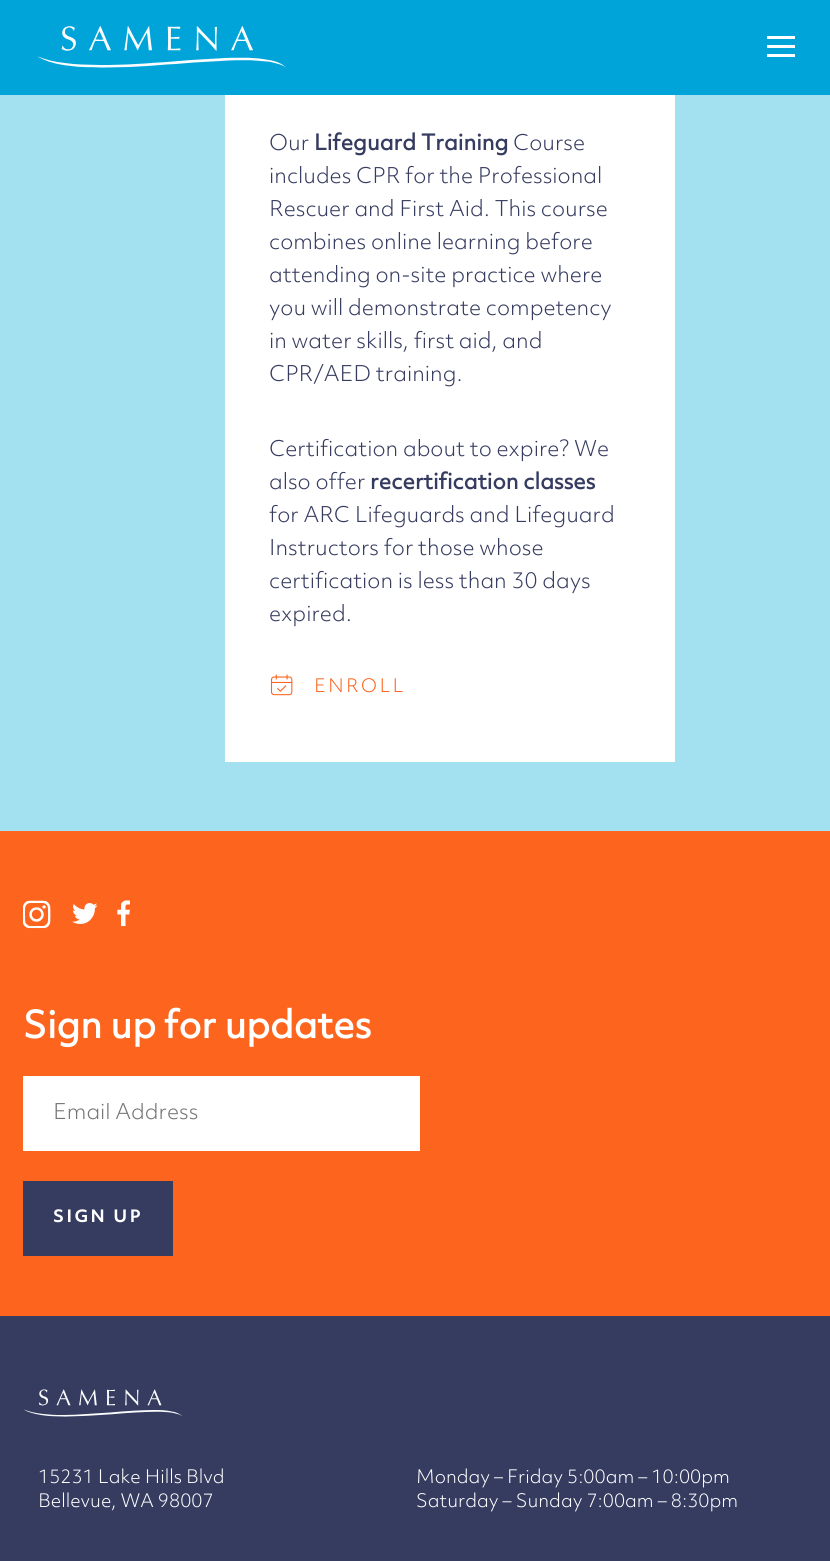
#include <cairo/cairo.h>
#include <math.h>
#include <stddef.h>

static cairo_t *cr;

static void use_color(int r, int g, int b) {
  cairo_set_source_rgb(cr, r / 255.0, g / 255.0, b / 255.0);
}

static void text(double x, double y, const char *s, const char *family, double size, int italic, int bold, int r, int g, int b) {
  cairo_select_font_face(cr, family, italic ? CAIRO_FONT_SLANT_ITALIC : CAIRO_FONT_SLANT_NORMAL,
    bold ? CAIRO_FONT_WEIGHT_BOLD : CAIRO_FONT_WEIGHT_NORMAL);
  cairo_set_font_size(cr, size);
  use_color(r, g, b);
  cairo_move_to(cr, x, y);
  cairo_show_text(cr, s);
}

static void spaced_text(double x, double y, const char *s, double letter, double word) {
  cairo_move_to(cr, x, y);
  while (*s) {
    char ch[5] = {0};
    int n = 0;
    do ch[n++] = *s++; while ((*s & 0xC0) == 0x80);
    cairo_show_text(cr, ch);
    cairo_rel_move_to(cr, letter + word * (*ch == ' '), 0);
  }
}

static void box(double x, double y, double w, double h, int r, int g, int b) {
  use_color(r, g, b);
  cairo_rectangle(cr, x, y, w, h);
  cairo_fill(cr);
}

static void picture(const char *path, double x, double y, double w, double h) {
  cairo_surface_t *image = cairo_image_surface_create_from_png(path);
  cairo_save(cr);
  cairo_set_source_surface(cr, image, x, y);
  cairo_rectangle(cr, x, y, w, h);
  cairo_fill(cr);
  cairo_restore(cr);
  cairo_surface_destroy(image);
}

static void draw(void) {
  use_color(163, 225, 240);
  cairo_paint(cr);
  box(0, 0, 830, 95, 0, 164, 217);
  picture("img_01.png", 37, 26, 249, 42);
  box(767, 45, 28, 3, 255, 255, 255);
  box(767, 36, 28, 3, 255, 255, 255);
  box(767, 54, 28, 3, 255, 255, 255);
  box(225, 95, 450, 667, 255, 255, 255);
  picture("img_02.png", 270, 674, 23, 22);
  box(0, 831, 830, 485, 253, 101, 31);
  picture("img_03.png", 23, 900, 28, 29);
  picture("img_04.png", 72, 903, 26, 21);
  picture("img_05.png", 117, 900, 13, 27);
  box(23, 1076, 397, 75, 255, 255, 255);
  box(23, 1181, 150, 75, 54, 60, 96);
  box(0, 1316, 830, 245, 54, 60, 96);
  picture("img_06.png", 24, 1389, 159, 28);
  text(269, 150, "Our", "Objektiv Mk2 Light", 21, 0, 0, 54, 60, 96);
  text(314, 150, "Lifeguard Training", "Objektiv Mk2", 21, 0, 1, 54, 60, 96);
  text(513, 150, "Course", "Objektiv Mk2 Light", 21, 0, 0, 54, 60, 96);
  text(269, 183, "includes CPR for the Professional", "Objektiv Mk2 Light", 21, 0, 0, 54, 60, 96);
  text(269, 216, "Rescuer and First Aid. This course", "Objektiv Mk2 Light", 21, 0, 0, 54, 60, 96);
  text(269, 249, "combines online learning before", "Objektiv Mk2 Light", 21, 0, 0, 54, 60, 96);
  text(269, 282, "attending on-site practice where", "Objektiv Mk2 Light", 21, 0, 0, 54, 60, 96);
  text(269, 315, "you will demonstrate competency", "Objektiv Mk2 Light", 21, 0, 0, 54, 60, 96);
  text(269, 348, "in water skills, first aid, and", "Objektiv Mk2 Light", 21, 0, 0, 54, 60, 96);
  text(269, 381, "CPR/AED training.", "Objektiv Mk2 Light", 21, 0, 0, 54, 60, 96);
  text(269, 456, "Certification about to expire? We", "Objektiv Mk2 Light", 21, 0, 0, 54, 60, 96);
  text(269, 489, "also offer", "Objektiv Mk2 Light", 21, 0, 0, 54, 60, 96);
  text(370, 489, "recertification classes", "Objektiv Mk2", 21, 0, 1, 54, 60, 96);
  text(269, 522, "for ARC Lifeguards and Lifeguard", "Objektiv Mk2 Light", 21, 0, 0, 54, 60, 96);
  text(269, 555, "Instructors for those whose", "Objektiv Mk2 Light", 21, 0, 0, 54, 60, 96);
  text(269, 588, "certification is less than 30 days", "Objektiv Mk2 Light", 21, 0, 0, 54, 60, 96);
  text(269, 621, "expired.", "Objektiv Mk2 Light", 21, 0, 0, 54, 60, 96);
  cairo_set_font_size(cr, 18);
  use_color(253, 101, 31);
  spaced_text(314, 692, "ENROLL", 2.25, 0);
  text(23, 1038, "Sign up for updates", "Objektiv Mk2", 36, 0, 1, 255, 255, 255);
  cairo_save(cr);
  cairo_rectangle(cr, 53, 1103, 337, 21);
  cairo_clip(cr);
  text(53, 1119, "Email Address", "Objektiv Mk2 Light", 21, 0, 0, 117, 117, 117);
  cairo_restore(cr);
  cairo_select_font_face(cr, "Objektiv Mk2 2", CAIRO_FONT_SLANT_NORMAL, CAIRO_FONT_WEIGHT_BOLD);
  cairo_set_font_size(cr, 16.5);
  spaced_text(53, 1222, "SIGN UP", 2.5, 0);
  text(38, 1483, "15231 Lake Hills Blvd", "Objektiv Mk2 Light", 18, 0, 0, 255, 255, 255);
  text(38, 1507, "Bellevue, WA 98007", "Objektiv Mk2 Light", 18, 0, 0, 255, 255, 255);
  text(416, 1483, "Monday – Friday 5:00am – 10:00pm", "Objektiv Mk2 Light", 18, 0, 0, 255, 255, 255);
  text(416, 1507, "Saturday – Sunday 7:00am – 8:30pm", "Objektiv Mk2 Light", 18, 0, 0, 255, 255, 255);
}

int main(void) {
  cairo_surface_t *surface = cairo_image_surface_create(CAIRO_FORMAT_RGB24, 830, 1561);
  cr = cairo_create(surface);
  cairo_font_options_t *options = cairo_font_options_create();
  cairo_font_options_set_hint_metrics(options, CAIRO_HINT_METRICS_OFF);
  cairo_font_options_set_hint_style(options, CAIRO_HINT_STYLE_NONE);
  cairo_set_font_options(cr, options);
  cairo_set_miter_limit(cr, 4);
  draw();
  cairo_surface_write_to_png(surface, "out.png");
  cairo_font_options_destroy(options);
  cairo_destroy(cr);
  cairo_surface_destroy(surface);
  return 0;
}
